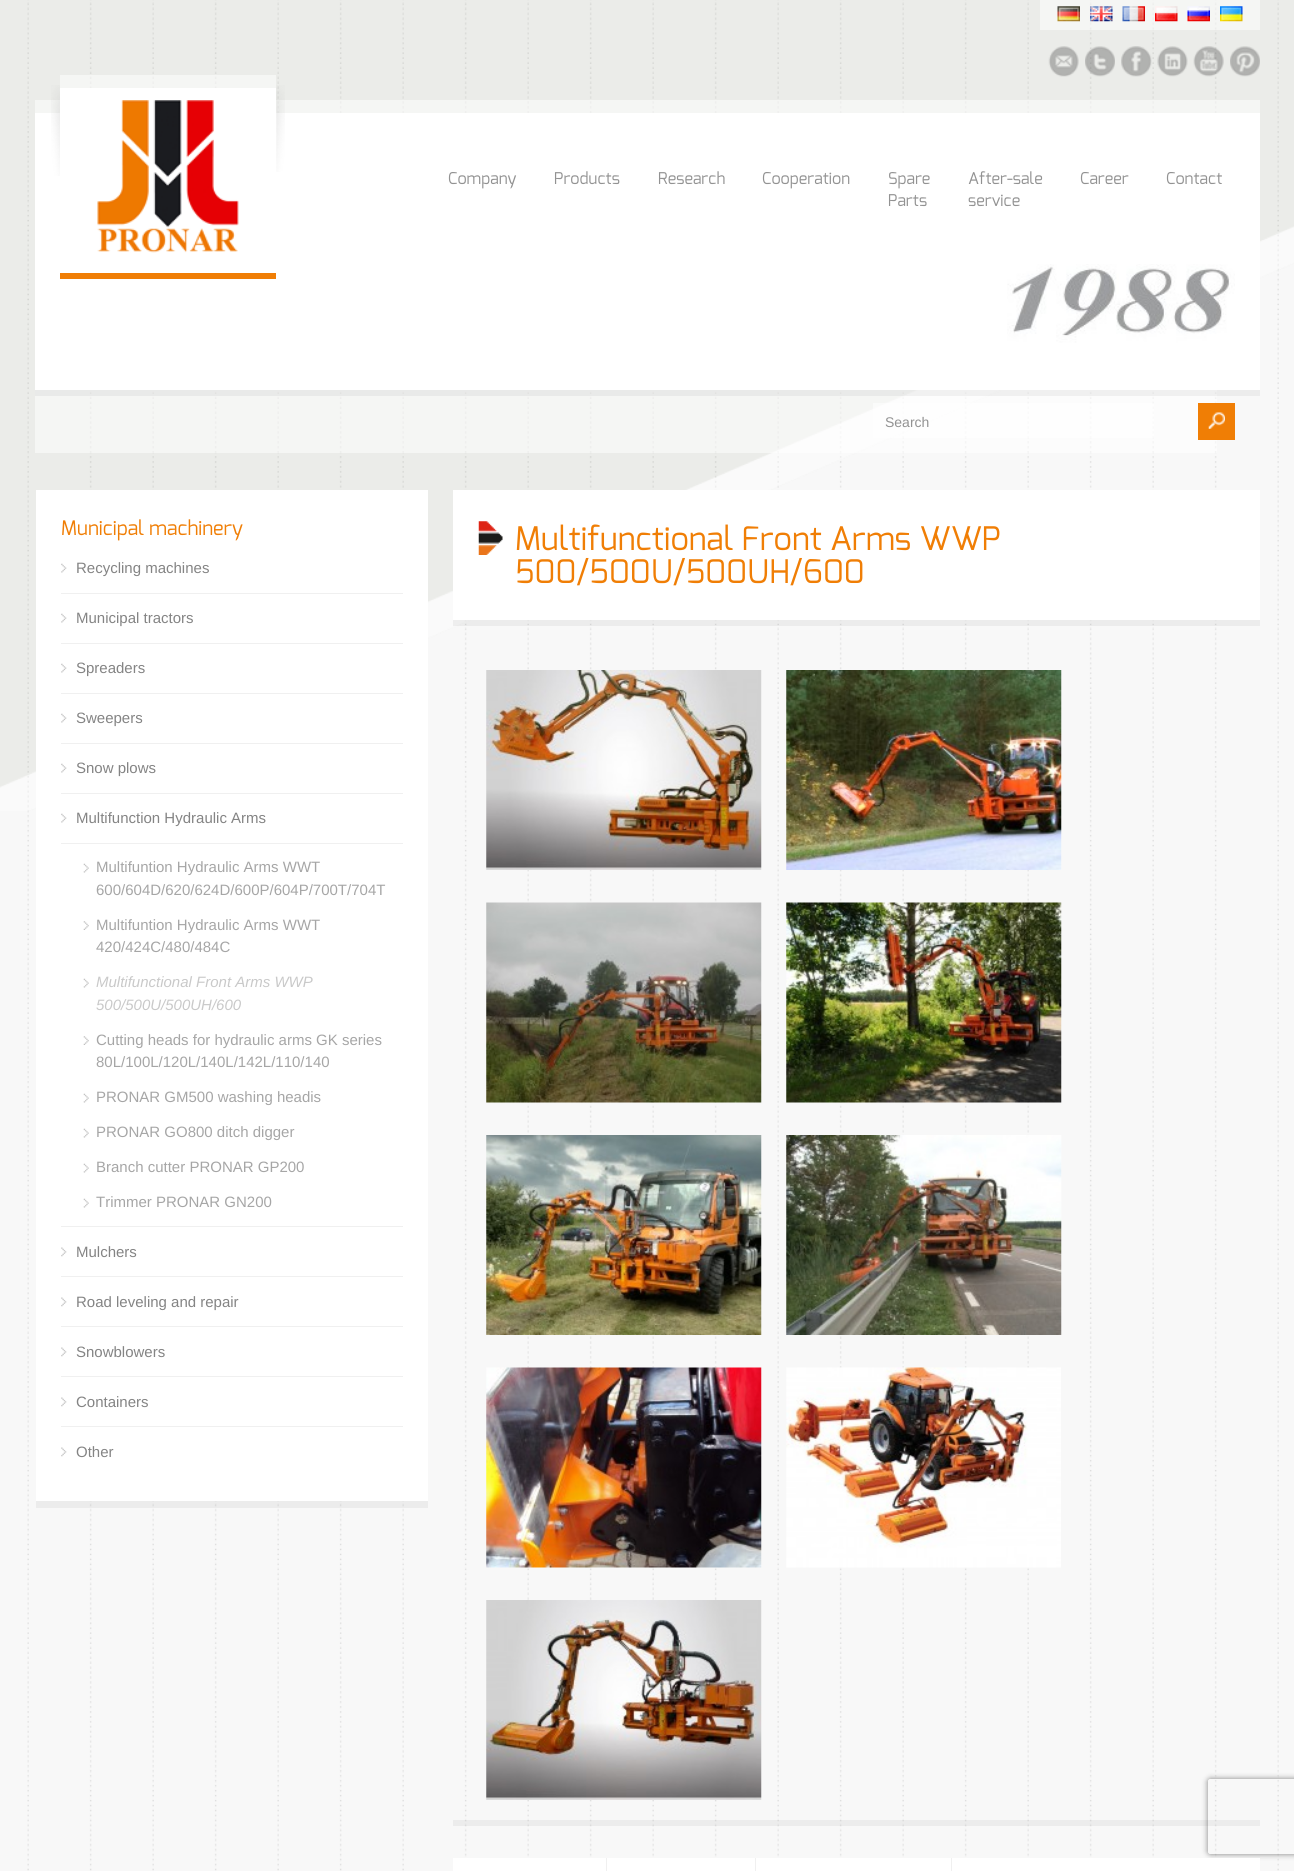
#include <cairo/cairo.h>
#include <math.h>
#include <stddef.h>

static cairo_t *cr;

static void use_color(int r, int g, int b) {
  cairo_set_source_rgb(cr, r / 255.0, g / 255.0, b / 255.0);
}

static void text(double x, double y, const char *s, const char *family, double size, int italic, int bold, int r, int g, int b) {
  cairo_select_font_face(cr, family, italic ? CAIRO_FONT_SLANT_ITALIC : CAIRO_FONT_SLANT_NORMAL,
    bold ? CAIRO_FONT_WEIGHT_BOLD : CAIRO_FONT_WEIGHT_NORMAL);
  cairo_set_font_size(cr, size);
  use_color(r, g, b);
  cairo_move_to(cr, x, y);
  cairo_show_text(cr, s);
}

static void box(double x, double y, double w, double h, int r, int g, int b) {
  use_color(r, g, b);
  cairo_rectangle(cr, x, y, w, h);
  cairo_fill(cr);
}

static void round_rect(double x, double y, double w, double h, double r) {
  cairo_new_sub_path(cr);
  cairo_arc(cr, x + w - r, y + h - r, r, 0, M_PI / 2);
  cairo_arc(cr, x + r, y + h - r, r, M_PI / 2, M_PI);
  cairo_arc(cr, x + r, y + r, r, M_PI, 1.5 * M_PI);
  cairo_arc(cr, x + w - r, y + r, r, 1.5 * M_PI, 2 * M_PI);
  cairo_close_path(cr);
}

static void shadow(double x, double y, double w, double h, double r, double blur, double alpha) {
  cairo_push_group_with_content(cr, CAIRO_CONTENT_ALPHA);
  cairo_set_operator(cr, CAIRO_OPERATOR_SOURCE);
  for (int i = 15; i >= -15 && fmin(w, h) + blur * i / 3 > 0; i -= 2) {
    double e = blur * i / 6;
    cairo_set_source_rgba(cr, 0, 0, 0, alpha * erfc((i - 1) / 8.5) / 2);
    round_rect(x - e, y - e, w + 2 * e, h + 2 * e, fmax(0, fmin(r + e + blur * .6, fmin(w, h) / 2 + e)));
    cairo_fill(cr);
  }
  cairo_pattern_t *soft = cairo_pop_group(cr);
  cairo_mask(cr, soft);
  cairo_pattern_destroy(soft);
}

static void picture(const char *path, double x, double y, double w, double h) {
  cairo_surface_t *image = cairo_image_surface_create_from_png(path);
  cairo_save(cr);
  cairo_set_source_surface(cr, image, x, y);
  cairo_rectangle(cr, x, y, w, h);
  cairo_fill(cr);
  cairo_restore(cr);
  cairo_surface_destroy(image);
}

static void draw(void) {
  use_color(255, 255, 255);
  cairo_paint(cr);
  picture("img_01.png", 0, 0, 1294, 1871);
  picture("img_14.png", 0, 0, 1294, 811);
  cairo_set_source_rgba(cr, 1, 1, 1, 0.5);
  cairo_rectangle(cr, 1040, 0, 220, 30);
  cairo_fill(cr);
  picture("img_02.png", 1057, 6, 23, 16);
  picture("img_03.png", 1090, 6, 23, 16);
  picture("img_04.png", 1122, 6, 23, 16);
  picture("img_05.png", 1155, 6, 23, 16);
  picture("img_06.png", 1187, 6, 23, 16);
  picture("img_07.png", 1220, 6, 23, 16);
  picture("img_08.png", 1048, 46, 31, 31);
  picture("img_09.png", 1085, 46, 30, 31);
  picture("img_10.png", 1121, 46, 31, 31);
  picture("img_11.png", 1157, 46, 31, 31);
  picture("img_12.png", 1193, 46, 31, 31);
  picture("img_13.png", 1230, 46, 30, 31);
  cairo_rectangle(cr, 35, 100, 1225, 13);
  cairo_fill(cr);
  box(35, 113, 1225, 277, 255, 255, 255);
  picture("img_15.png", 51, 85, 9, 91);
  box(60, 273, 216, 6, 240, 126, 5);
  cairo_set_source_rgba(cr, 1, 1, 1, 0.5);
  cairo_rectangle(cr, 60, 75, 216, 13);
  cairo_fill(cr);
  box(60, 88, 216, 25, 255, 255, 255);
  picture("img_16.png", 97, 100, 142, 153);
  picture("img_17.png", 276, 85, 9, 87);
  picture("img_18.png", 1007, 264, 228, 79);
  cairo_set_source_rgba(cr, 1, 1, 1, 0.5);
  cairo_rectangle(cr, 35, 390, 1182, 63);
  cairo_fill(cr);
  cairo_set_source_rgba(cr, 0, 0, 0, 0.05);
  cairo_rectangle(cr, 35, 390, 1225, 6);
  cairo_fill(cr);
  cairo_set_source_rgba(cr, 1, 1, 1, 0.5);
  cairo_rectangle(cr, 873, 403, 281, 35);
  cairo_fill(cr);
  box(1198, 403, 37, 37, 240, 126, 5);
  picture("img_19.png", 1208, 412, 17, 17);
  cairo_set_source_rgba(cr, 0, 0, 0, 0.05);
  cairo_new_path(cr);
  cairo_move_to(cr, 36, 496);
  cairo_line_to(cr, 36, 1508);
  cairo_line_to(cr, 428, 1508);
  cairo_line_to(cr, 428, 496);
  cairo_line_to(cr, 428, 1501);
  cairo_line_to(cr, 36, 1501);
  cairo_close_path(cr);
  cairo_fill(cr);
  box(36, 490, 392, 1011, 255, 255, 255);
  picture("img_20.png", 61, 563, 6, 10);
  box(61, 593, 342, 1, 240, 240, 240);
  picture("img_20.png", 61, 613, 6, 10);
  box(61, 643, 342, 1, 240, 240, 240);
  picture("img_20.png", 61, 663, 6, 10);
  box(61, 693, 342, 1, 240, 240, 240);
  picture("img_20.png", 61, 713, 6, 10);
  box(61, 743, 342, 1, 240, 240, 240);
  picture("img_20.png", 61, 763, 6, 10);
  box(61, 793, 342, 1, 240, 240, 240);
  picture("img_20.png", 61, 813, 6, 10);
  box(61, 1226, 342, 1, 240, 240, 240);
  box(61, 843, 342, 1, 240, 240, 240);
  picture("img_21.png", 83, 863, 6, 10);
  picture("img_22.png", 83, 921, 6, 9);
  picture("img_21.png", 83, 978, 6, 10);
  picture("img_22.png", 83, 1036, 6, 9);
  picture("img_21.png", 83, 1093, 6, 10);
  picture("img_21.png", 83, 1128, 6, 10);
  picture("img_21.png", 83, 1163, 6, 10);
  picture("img_21.png", 83, 1198, 6, 10);
  picture("img_23.png", 61, 1247, 6, 10);
  box(61, 1276, 342, 1, 240, 240, 240);
  picture("img_23.png", 61, 1297, 6, 10);
  box(61, 1326, 342, 1, 240, 240, 240);
  picture("img_23.png", 61, 1347, 6, 10);
  box(61, 1376, 342, 1, 240, 240, 240);
  picture("img_23.png", 61, 1397, 6, 10);
  box(61, 1426, 342, 1, 240, 240, 240);
  picture("img_23.png", 61, 1447, 6, 10);
  cairo_set_source_rgba(cr, 0, 0, 0, 0.05);
  cairo_rectangle(cr, 453, 620, 807, 6);
  cairo_fill(cr);
  box(453, 490, 807, 130, 255, 255, 255);
  picture("img_24.png", 478, 521, 25, 34);
  cairo_save(cr);
  cairo_set_fill_rule(cr, CAIRO_FILL_RULE_EVEN_ODD);
  cairo_new_path(cr);
  cairo_move_to(cr, 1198, 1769);
  cairo_line_to(cr, 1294, 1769);
  cairo_line_to(cr, 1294, 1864);
  cairo_line_to(cr, 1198, 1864);
  cairo_close_path(cr);
  cairo_move_to(cr, 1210.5, 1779);
  cairo_line_to(cr, 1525.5, 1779);
  cairo_curve_to(cr, 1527, 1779, 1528, 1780, 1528, 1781.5);
  cairo_line_to(cr, 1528, 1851.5);
  cairo_curve_to(cr, 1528, 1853, 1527, 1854, 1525.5, 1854);
  cairo_line_to(cr, 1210.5, 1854);
  cairo_curve_to(cr, 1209, 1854, 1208, 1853, 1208, 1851.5);
  cairo_line_to(cr, 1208, 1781.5);
  cairo_curve_to(cr, 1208, 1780, 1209, 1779, 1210.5, 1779);
  cairo_close_path(cr);
  cairo_clip(cr);
  use_color(128, 128, 128);
  shadow(1208, 1779, 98, 75, 2.5, 3, 1);
  cairo_restore(cr);
  cairo_set_source_rgba(cr, 0, 0, 0, 0.05);
  cairo_rectangle(cr, 453, 1820, 807, 6);
  cairo_fill(cr);
  picture("img_25.png", 486, 670, 276, 200);
  picture("img_26.png", 786, 670, 276, 200);
  picture("img_27.png", 486, 902, 276, 201);
  picture("img_28.png", 786, 902, 276, 201);
  picture("img_29.png", 486, 1135, 276, 200);
  picture("img_30.png", 786, 1135, 276, 200);
  picture("img_31.png", 486, 1367, 276, 201);
  picture("img_32.png", 786, 1367, 275, 201);
  picture("img_33.png", 486, 1600, 276, 200);
  box(453, 1858, 807, 13, 255, 255, 255);
  box(606, 1858, 1, 13, 240, 240, 240);
  box(755, 1858, 1, 13, 240, 240, 240);
  box(951, 1858, 1, 13, 240, 240, 240);
  text(448, 184, "Company", "Exo", 16.25, 0, 0, 146, 146, 146);
  text(554, 184, "Products", "Exo", 16.25, 0, 0, 146, 146, 146);
  text(658, 184, "Research", "Exo", 16.25, 0, 0, 146, 146, 146);
  text(762, 184, "Cooperation", "Exo", 16.25, 0, 0, 146, 146, 146);
  text(888, 184, "Spare", "Exo", 16.25, 0, 0, 146, 146, 146);
  text(888, 206, "Parts", "Exo", 16.25, 0, 0, 146, 146, 146);
  text(968, 184, "After-sale", "Exo", 16.25, 0, 0, 146, 146, 146);
  text(968, 206, "service", "Exo", 16.25, 0, 0, 146, 146, 146);
  text(1080, 184, "Career", "Exo", 16.25, 0, 0, 146, 146, 146);
  text(1166, 184, "Contact", "Exo", 16.25, 0, 0, 146, 146, 146);
  text(885, 427, "Search", "Liberation Sans", 14, 0, 0, 146, 146, 146);
  text(61, 535, "Municipal machinery", "Exo", 20, 0, 0, 240, 126, 5);
  text(76, 573, "Recycling machines", "Liberation Sans", 15, 0, 0, 132, 132, 132);
  text(76, 623, "Municipal tractors", "Liberation Sans", 15, 0, 0, 132, 132, 132);
  text(76, 673, "Spreaders", "Liberation Sans", 15, 0, 0, 132, 132, 132);
  text(76, 723, "Sweepers", "Liberation Sans", 15, 0, 0, 132, 132, 132);
  text(76, 773, "Snow plows", "Liberation Sans", 15, 0, 0, 132, 132, 132);
  text(76, 823, "Multifunction Hydraulic Arms", "Liberation Sans", 15, 0, 0, 132, 132, 132);
  text(96, 872, "Multifuntion Hydraulic Arms WWT", "Liberation Sans", 15, 0, 0, 166, 166, 166);
  text(96, 895, "600/604D/620/624D/600P/604P/700T/704T", "Liberation Sans", 15, 0, 0, 166, 166, 166);
  text(96, 930, "Multifuntion Hydraulic Arms WWT", "Liberation Sans", 15, 0, 0, 166, 166, 166);
  text(96, 952, "420/424C/480/484C", "Liberation Sans", 15, 0, 0, 166, 166, 166);
  text(96, 987, "Multifunctional Front Arms WWP", "Liberation Sans", 15, 1, 0, 201, 201, 201);
  text(96, 1010, "500/500U/500UH/600", "Liberation Sans", 15, 1, 0, 201, 201, 201);
  text(96, 1045, "Cutting heads for hydraulic arms GK series", "Liberation Sans", 15, 0, 0, 166, 166, 166);
  text(96, 1067, "80L/100L/120L/140L/142L/110/140", "Liberation Sans", 15, 0, 0, 166, 166, 166);
  text(96, 1102, "PRONAR GM500 washing headis", "Liberation Sans", 15, 0, 0, 166, 166, 166);
  text(96, 1137, "PRONAR GO800 ditch digger", "Liberation Sans", 15, 0, 0, 166, 166, 166);
  text(96, 1172, "Branch cutter PRONAR GP200", "Liberation Sans", 15, 0, 0, 166, 166, 166);
  text(96, 1207, "Trimmer PRONAR GN200", "Liberation Sans", 15, 0, 0, 166, 166, 166);
  text(76, 1257, "Mulchers", "Liberation Sans", 15, 0, 0, 132, 132, 132);
  text(76, 1307, "Road leveling and repair", "Liberation Sans", 15, 0, 0, 132, 132, 132);
  text(76, 1357, "Snowblowers", "Liberation Sans", 15, 0, 0, 132, 132, 132);
  text(76, 1407, "Containers", "Liberation Sans", 15, 0, 0, 132, 132, 132);
  text(76, 1457, "Other", "Liberation Sans", 15, 0, 0, 132, 132, 132);
  text(515, 550, "Multifunctional Front Arms WWP", "Exo", 32.5, 0, 0, 240, 126, 5);
  text(515, 583, "500/500U/500UH/600", "Exo", 32.5, 0, 0, 240, 126, 5);
}

int main(void) {
  cairo_surface_t *surface = cairo_image_surface_create(CAIRO_FORMAT_RGB24, 1294, 1871);
  cr = cairo_create(surface);
  cairo_font_options_t *options = cairo_font_options_create();
  cairo_font_options_set_hint_metrics(options, CAIRO_HINT_METRICS_OFF);
  cairo_font_options_set_hint_style(options, CAIRO_HINT_STYLE_NONE);
  cairo_set_font_options(cr, options);
  cairo_set_miter_limit(cr, 4);
  draw();
  cairo_surface_write_to_png(surface, "out.png");
  cairo_font_options_destroy(options);
  cairo_destroy(cr);
  cairo_surface_destroy(surface);
  return 0;
}
